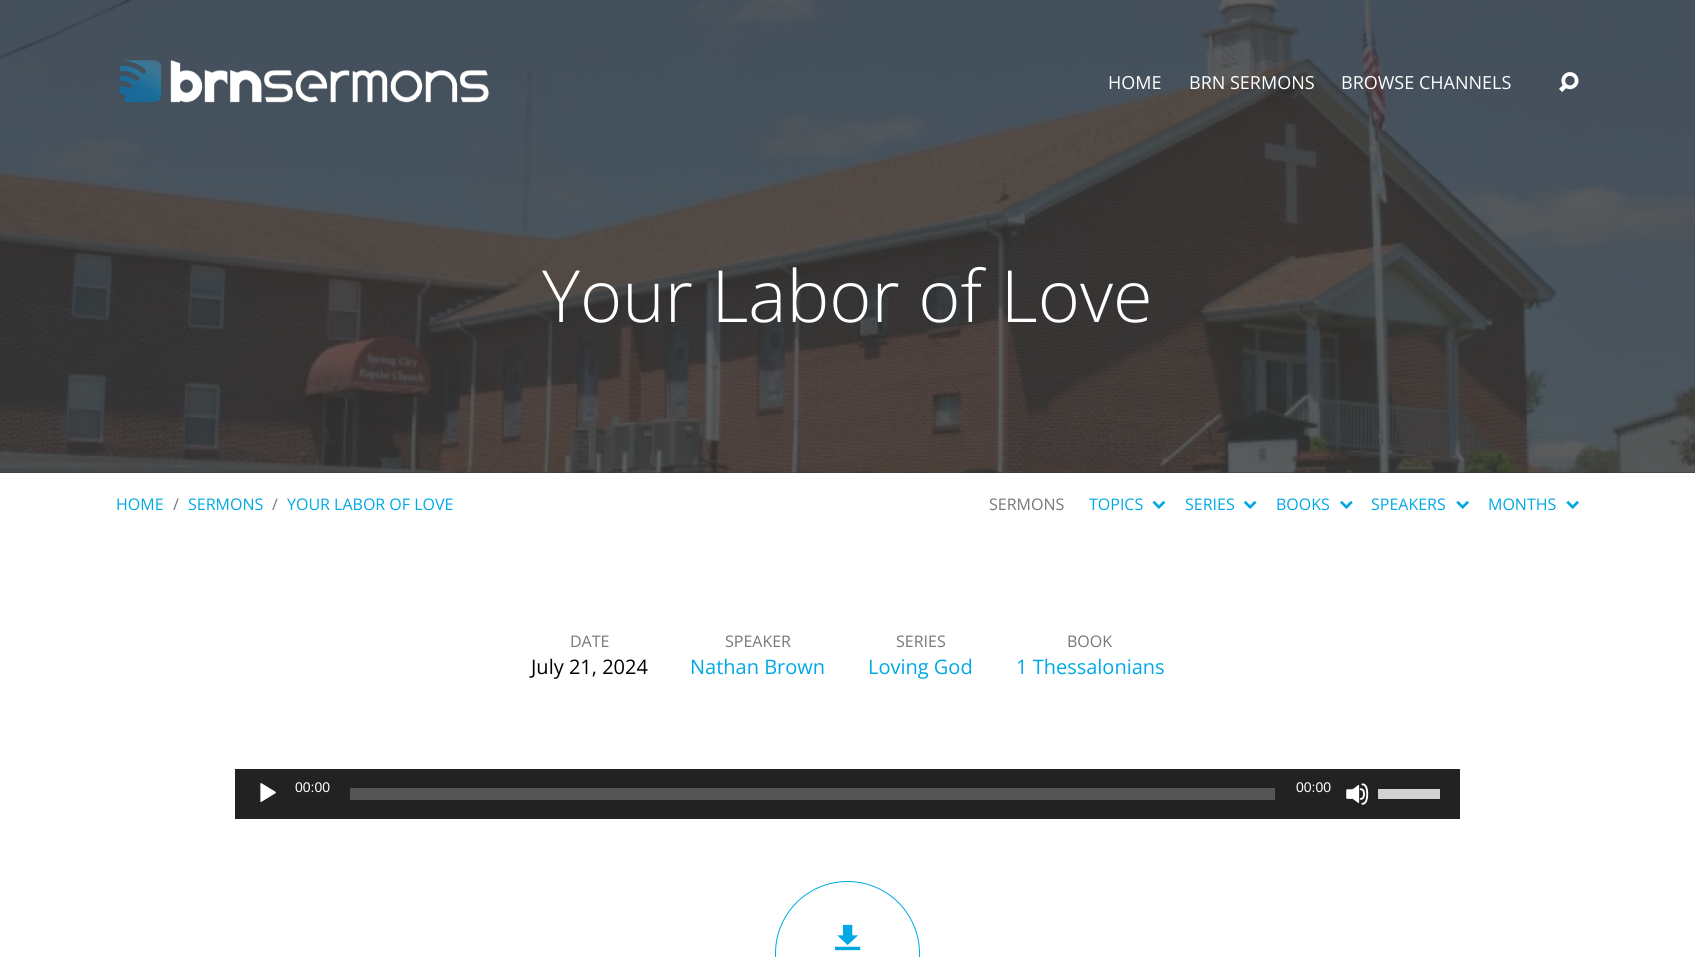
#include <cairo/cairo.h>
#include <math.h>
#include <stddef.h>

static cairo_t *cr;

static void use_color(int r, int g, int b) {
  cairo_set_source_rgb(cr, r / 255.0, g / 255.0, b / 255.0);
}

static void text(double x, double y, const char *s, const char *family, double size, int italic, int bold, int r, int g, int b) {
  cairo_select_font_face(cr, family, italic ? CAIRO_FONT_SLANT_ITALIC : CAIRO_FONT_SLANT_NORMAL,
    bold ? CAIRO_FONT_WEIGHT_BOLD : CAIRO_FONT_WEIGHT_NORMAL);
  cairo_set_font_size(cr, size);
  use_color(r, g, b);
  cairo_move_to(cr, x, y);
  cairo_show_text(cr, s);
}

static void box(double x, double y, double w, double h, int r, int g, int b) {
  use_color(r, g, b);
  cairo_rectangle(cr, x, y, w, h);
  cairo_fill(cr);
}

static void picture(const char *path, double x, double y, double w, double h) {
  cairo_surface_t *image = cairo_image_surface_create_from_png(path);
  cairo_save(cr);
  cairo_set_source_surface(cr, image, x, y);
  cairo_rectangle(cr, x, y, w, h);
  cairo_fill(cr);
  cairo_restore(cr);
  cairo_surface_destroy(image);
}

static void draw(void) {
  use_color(255, 255, 255);
  cairo_paint(cr);
  box(0, 0, 1695, 473, 56, 56, 56);
  picture("img_03.png", 0, 0, 1695, 473);
  picture("img_01.png", 119, 60, 370, 43);
  picture("img_02.png", 1559, 72, 20, 20);
  picture("img_04.png", 1152, 500, 14, 9);
  picture("img_05.png", 1243, 500, 14, 9);
  picture("img_06.png", 1340, 500, 13, 9);
  picture("img_07.png", 1456, 500, 13, 9);
  picture("img_07.png", 1566, 500, 13, 9);
  box(235, 769, 1225, 50, 34, 34, 34);
  picture("img_08.png", 260, 783, 16, 19);
  box(350, 788, 925, 12, 85, 85, 85);
  picture("img_09.png", 1346, 783, 23, 22);
  box(1378, 789, 62, 10, 210, 210, 210);
  cairo_arc(cr, 847.5, 953.5, 72, 0, 2 * M_PI);
  use_color(0, 169, 227);
  cairo_set_line_width(cr, 1);
  cairo_stroke(cr);
  picture("img_10.png", 835, 924, 26, 27);
  text(1108, 89, "HOME", "Open Sans", 18, 0, 0, 255, 255, 255);
  text(1189, 89, "BRN SERMONS", "Open Sans", 18, 0, 0, 255, 255, 255);
  text(1341, 89, "BROWSE CHANNELS", "Open Sans", 18, 0, 0, 255, 255, 255);
  text(542, 322, "Your Labor of Love", "Open Sans Light", 72, 0, 0, 255, 255, 255);
  text(116, 510, "HOME", "Open Sans", 16, 0, 0, 0, 169, 227);
  text(173, 510, "/", "Open Sans", 16, 0, 0, 119, 119, 119);
  text(188, 510, "SERMONS", "Open Sans", 16, 0, 0, 0, 169, 227);
  text(272, 510, "/", "Open Sans", 16, 0, 0, 119, 119, 119);
  text(287, 510, "YOUR LABOR OF LOVE", "Open Sans", 16, 0, 0, 0, 169, 227);
  text(989, 510, "SERMONS", "Open Sans", 16, 0, 0, 119, 119, 119);
  text(1089, 510, "TOPICS", "Open Sans", 16, 0, 0, 0, 169, 227);
  text(1185, 510, "SERIES", "Open Sans", 16, 0, 0, 0, 169, 227);
  text(1276, 510, "BOOKS", "Open Sans", 16, 0, 0, 0, 169, 227);
  text(1371, 510, "SPEAKERS", "Open Sans", 16, 0, 0, 0, 169, 227);
  text(1488, 510, "MONTHS", "Open Sans", 16, 0, 0, 0, 169, 227);
  text(570, 647, "DATE", "Open Sans", 16, 0, 0, 119, 119, 119);
  text(531, 674, "July 21, 2024", "Open Sans", 20, 0, 0, 0, 0, 0);
  text(725, 647, "SPEAKER", "Open Sans", 16, 0, 0, 119, 119, 119);
  text(690, 674, "Nathan Brown", "Open Sans", 20, 0, 0, 0, 169, 227);
  text(896, 647, "SERIES", "Open Sans", 16, 0, 0, 119, 119, 119);
  text(868, 674, "Loving God", "Open Sans", 20, 0, 0, 0, 169, 227);
  text(1067, 647, "BOOK", "Open Sans", 16, 0, 0, 119, 119, 119);
  text(1016, 674, "1 Thessalonians", "Open Sans", 20, 0, 0, 0, 169, 227);
  text(295, 792, "00:00", "Liberation Sans", 14, 0, 0, 255, 255, 255);
  text(1296, 792, "00:00", "Liberation Sans", 14, 0, 0, 255, 255, 255);
}

int main(void) {
  cairo_surface_t *surface = cairo_image_surface_create(CAIRO_FORMAT_RGB24, 1695, 957);
  cr = cairo_create(surface);
  cairo_font_options_t *options = cairo_font_options_create();
  cairo_font_options_set_hint_metrics(options, CAIRO_HINT_METRICS_OFF);
  cairo_font_options_set_hint_style(options, CAIRO_HINT_STYLE_NONE);
  cairo_set_font_options(cr, options);
  cairo_set_miter_limit(cr, 4);
  draw();
  cairo_surface_write_to_png(surface, "out.png");
  cairo_font_options_destroy(options);
  cairo_destroy(cr);
  cairo_surface_destroy(surface);
  return 0;
}
